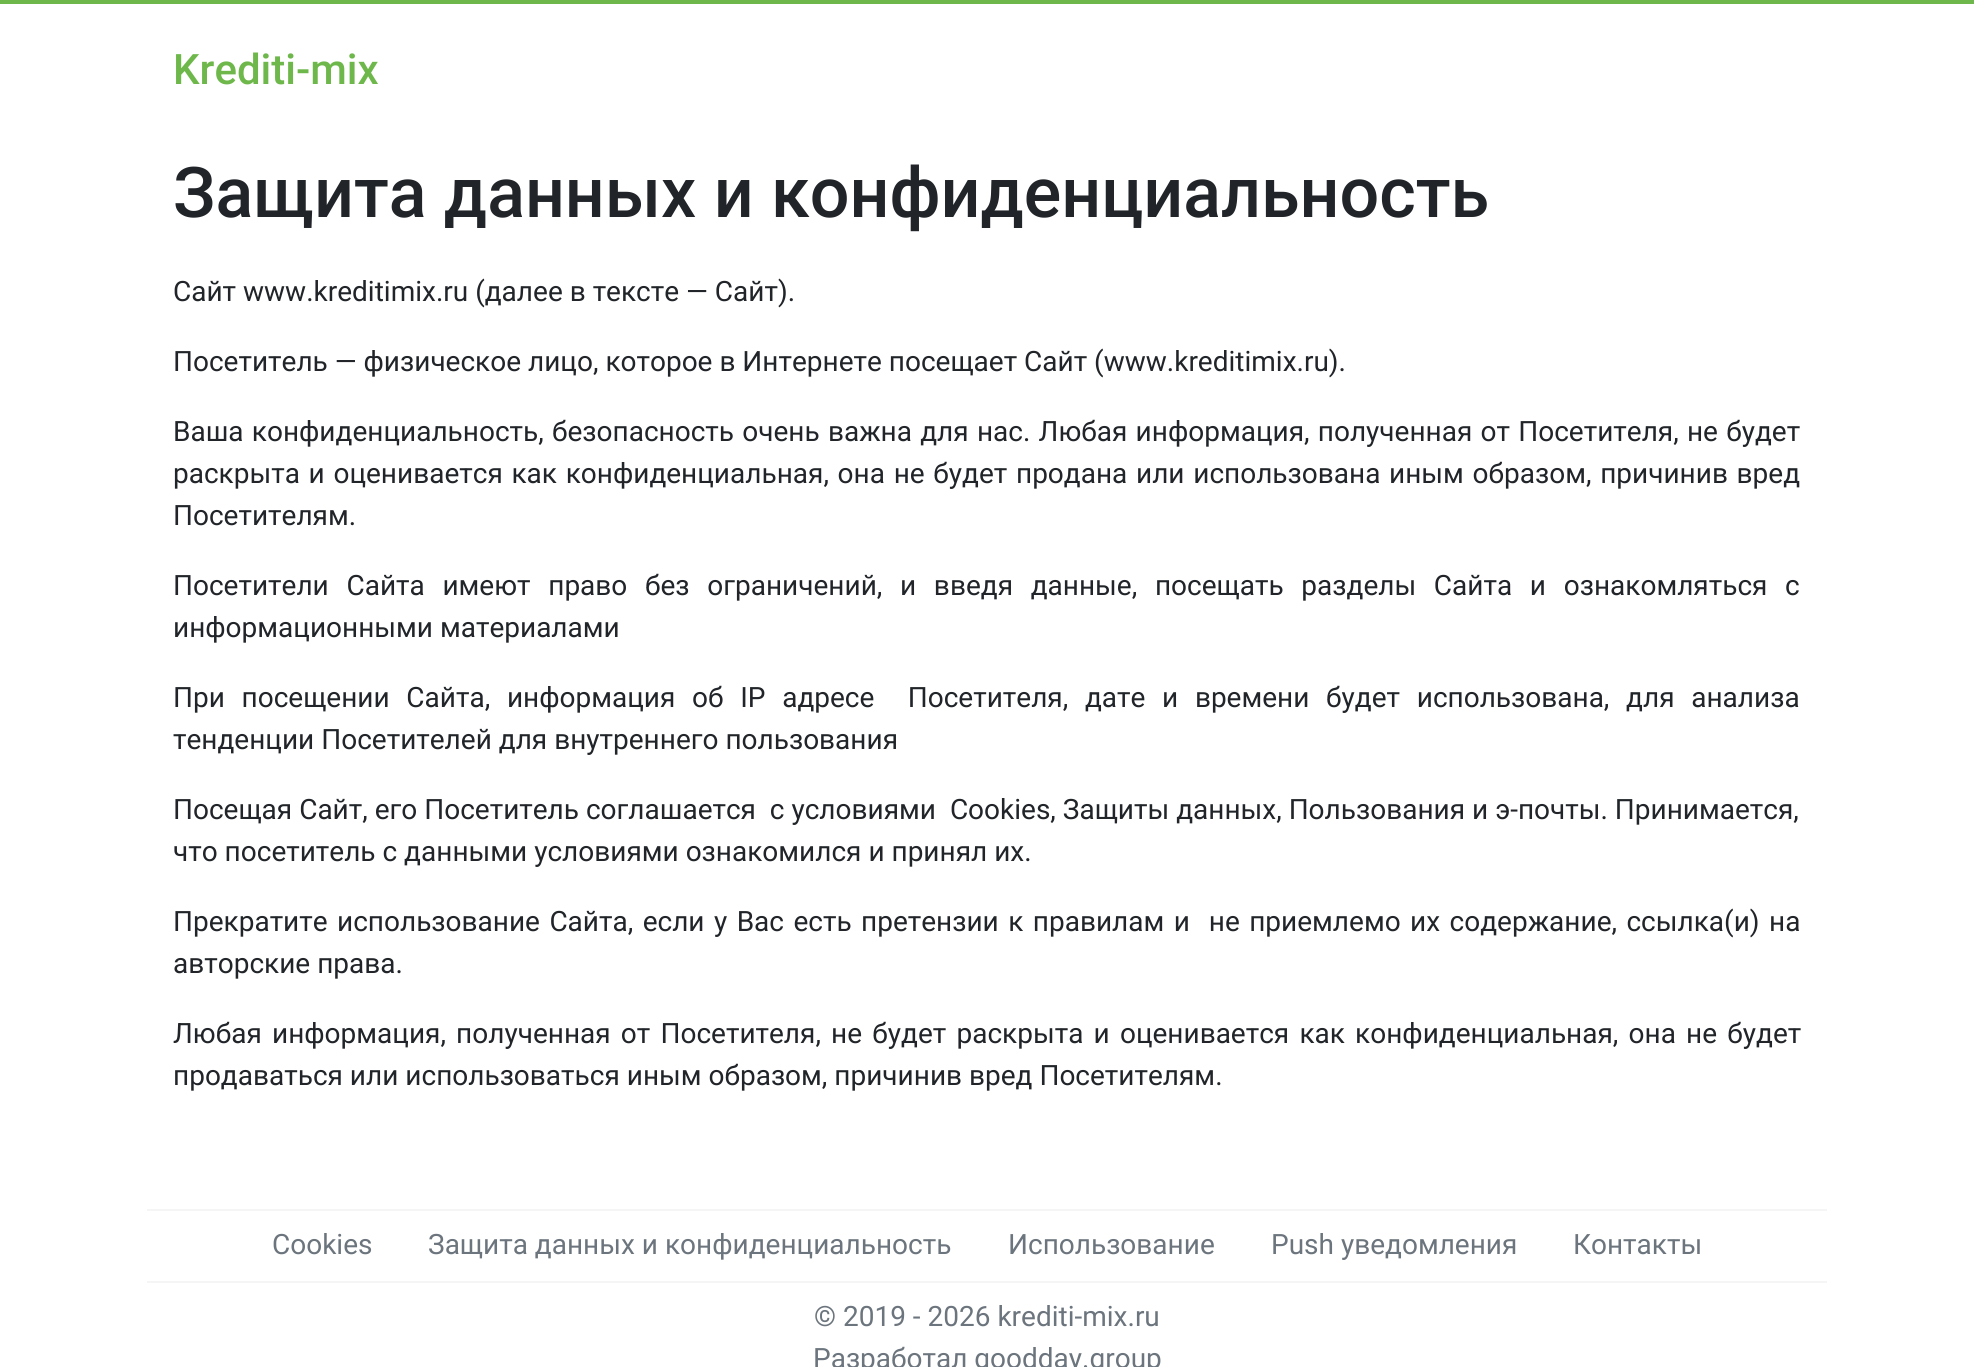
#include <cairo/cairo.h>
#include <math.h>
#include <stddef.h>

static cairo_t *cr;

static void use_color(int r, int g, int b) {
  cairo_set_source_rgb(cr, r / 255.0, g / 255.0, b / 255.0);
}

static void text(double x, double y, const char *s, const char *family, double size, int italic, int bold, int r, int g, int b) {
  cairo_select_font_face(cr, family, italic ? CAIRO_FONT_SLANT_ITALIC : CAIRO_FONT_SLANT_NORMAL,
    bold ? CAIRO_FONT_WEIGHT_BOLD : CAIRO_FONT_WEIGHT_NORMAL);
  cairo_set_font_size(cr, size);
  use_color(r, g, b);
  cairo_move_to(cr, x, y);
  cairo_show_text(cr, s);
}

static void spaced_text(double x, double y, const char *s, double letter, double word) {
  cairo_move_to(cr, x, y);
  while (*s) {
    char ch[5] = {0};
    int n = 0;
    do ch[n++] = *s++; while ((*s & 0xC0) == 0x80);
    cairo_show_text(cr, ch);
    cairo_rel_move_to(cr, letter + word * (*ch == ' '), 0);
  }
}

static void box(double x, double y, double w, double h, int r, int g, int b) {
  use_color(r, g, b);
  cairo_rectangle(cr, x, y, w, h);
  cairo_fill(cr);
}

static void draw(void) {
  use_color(255, 255, 255);
  cairo_paint(cr);
  box(0, 0, 1974, 4, 110, 183, 75);
  box(147, 1209, 1680, 2, 245, 245, 245);
  box(147, 1281, 1680, 2, 245, 245, 245);
  text(173, 84, "Krediti-mix", "Roboto Medium", 42, 0, 0, 110, 183, 75);
  text(173, 217, "Защита данных и конфиденциальность", "Roboto Medium", 70, 0, 0, 33, 37, 41);
  text(173, 301, "Сайт www.kreditimix.ru (далее в тексте — Сайт).", "Roboto", 28, 0, 0, 33, 37, 41);
  text(173, 371, "Посетитель — физическое лицо, которое в Интернете посещает Сайт (www.kreditimix.ru).", "Roboto", 28, 0, 0, 33, 37, 41);
  spaced_text(173, 441, "Ваша конфиденциальность, безопасность очень важна для нас. Любая информация, полученная от Посетителя, не будет", 0, 1.3);
  spaced_text(173, 483, "раскрыта и оценивается как конфиденциальная, она не будет продана или использована иным образом, причинив вред", 0, 1.75);
  text(173, 525, "Посетителям.", "Roboto", 28, 0, 0, 33, 37, 41);
  spaced_text(173, 595, "Посетители Сайта имеют право без ограничений, и введя данные, посещать разделы Сайта и ознакомляться с", 0, 10.75);
  text(173, 637, "информационными материалами", "Roboto", 28, 0, 0, 33, 37, 41);
  spaced_text(173, 707, "При посещении Сайта, информация об IP адресе  Посетителя, дате и времени будет использована, для анализа", 0, 9.75);
  text(173, 749, "тенденции Посетителей для внутреннего пользования", "Roboto", 28, 0, 0, 33, 37, 41);
  text(173, 819, "Посещая Сайт, его Посетитель соглашается  с условиями  Cookies, Защиты данных, Пользования и э-почты. Принимается,", "Roboto", 28, 0, 0, 33, 37, 41);
  text(173, 861, "что посетитель с данными условиями ознакомился и принял их.", "Roboto", 28, 0, 0, 33, 37, 41);
  spaced_text(173, 931, "Прекратите использование Сайта, если у Вас есть претензии к правилам и  не приемлемо их содержание, ссылка(и) на", 0, 2.5);
  text(173, 973, "авторские права.", "Roboto", 28, 0, 0, 33, 37, 41);
  spaced_text(173, 1043, "Любая информация, полученная от Посетителя, не будет раскрыта и оценивается как конфиденциальная, она не будет", 0, 3.25);
  text(173, 1085, "продаваться или использоваться иным образом, причинив вред Посетителям.", "Roboto", 28, 0, 0, 33, 37, 41);
  text(272, 1254, "Cookies", "Roboto", 28, 0, 0, 108, 117, 125);
  text(428, 1254, "Защита данных и конфиденциальность", "Roboto", 28, 0, 0, 108, 117, 125);
  text(1008, 1254, "Использование", "Roboto", 28, 0, 0, 108, 117, 125);
  text(1271, 1254, "Push уведомления", "Roboto", 28, 0, 0, 108, 117, 125);
  text(1573, 1254, "Контакты", "Roboto", 28, 0, 0, 108, 117, 125);
  text(814, 1326, "© 2019 - 2026 krediti-mix.ru", "Roboto", 28, 0, 0, 108, 117, 125);
  text(813, 1368, "Разработал goodday.group", "Roboto", 28, 0, 0, 108, 117, 125);
}

int main(void) {
  cairo_surface_t *surface = cairo_image_surface_create(CAIRO_FORMAT_RGB24, 1974, 1367);
  cr = cairo_create(surface);
  cairo_font_options_t *options = cairo_font_options_create();
  cairo_font_options_set_hint_metrics(options, CAIRO_HINT_METRICS_OFF);
  cairo_font_options_set_hint_style(options, CAIRO_HINT_STYLE_NONE);
  cairo_set_font_options(cr, options);
  cairo_set_miter_limit(cr, 4);
  draw();
  cairo_surface_write_to_png(surface, "out.png");
  cairo_font_options_destroy(options);
  cairo_destroy(cr);
  cairo_surface_destroy(surface);
  return 0;
}
